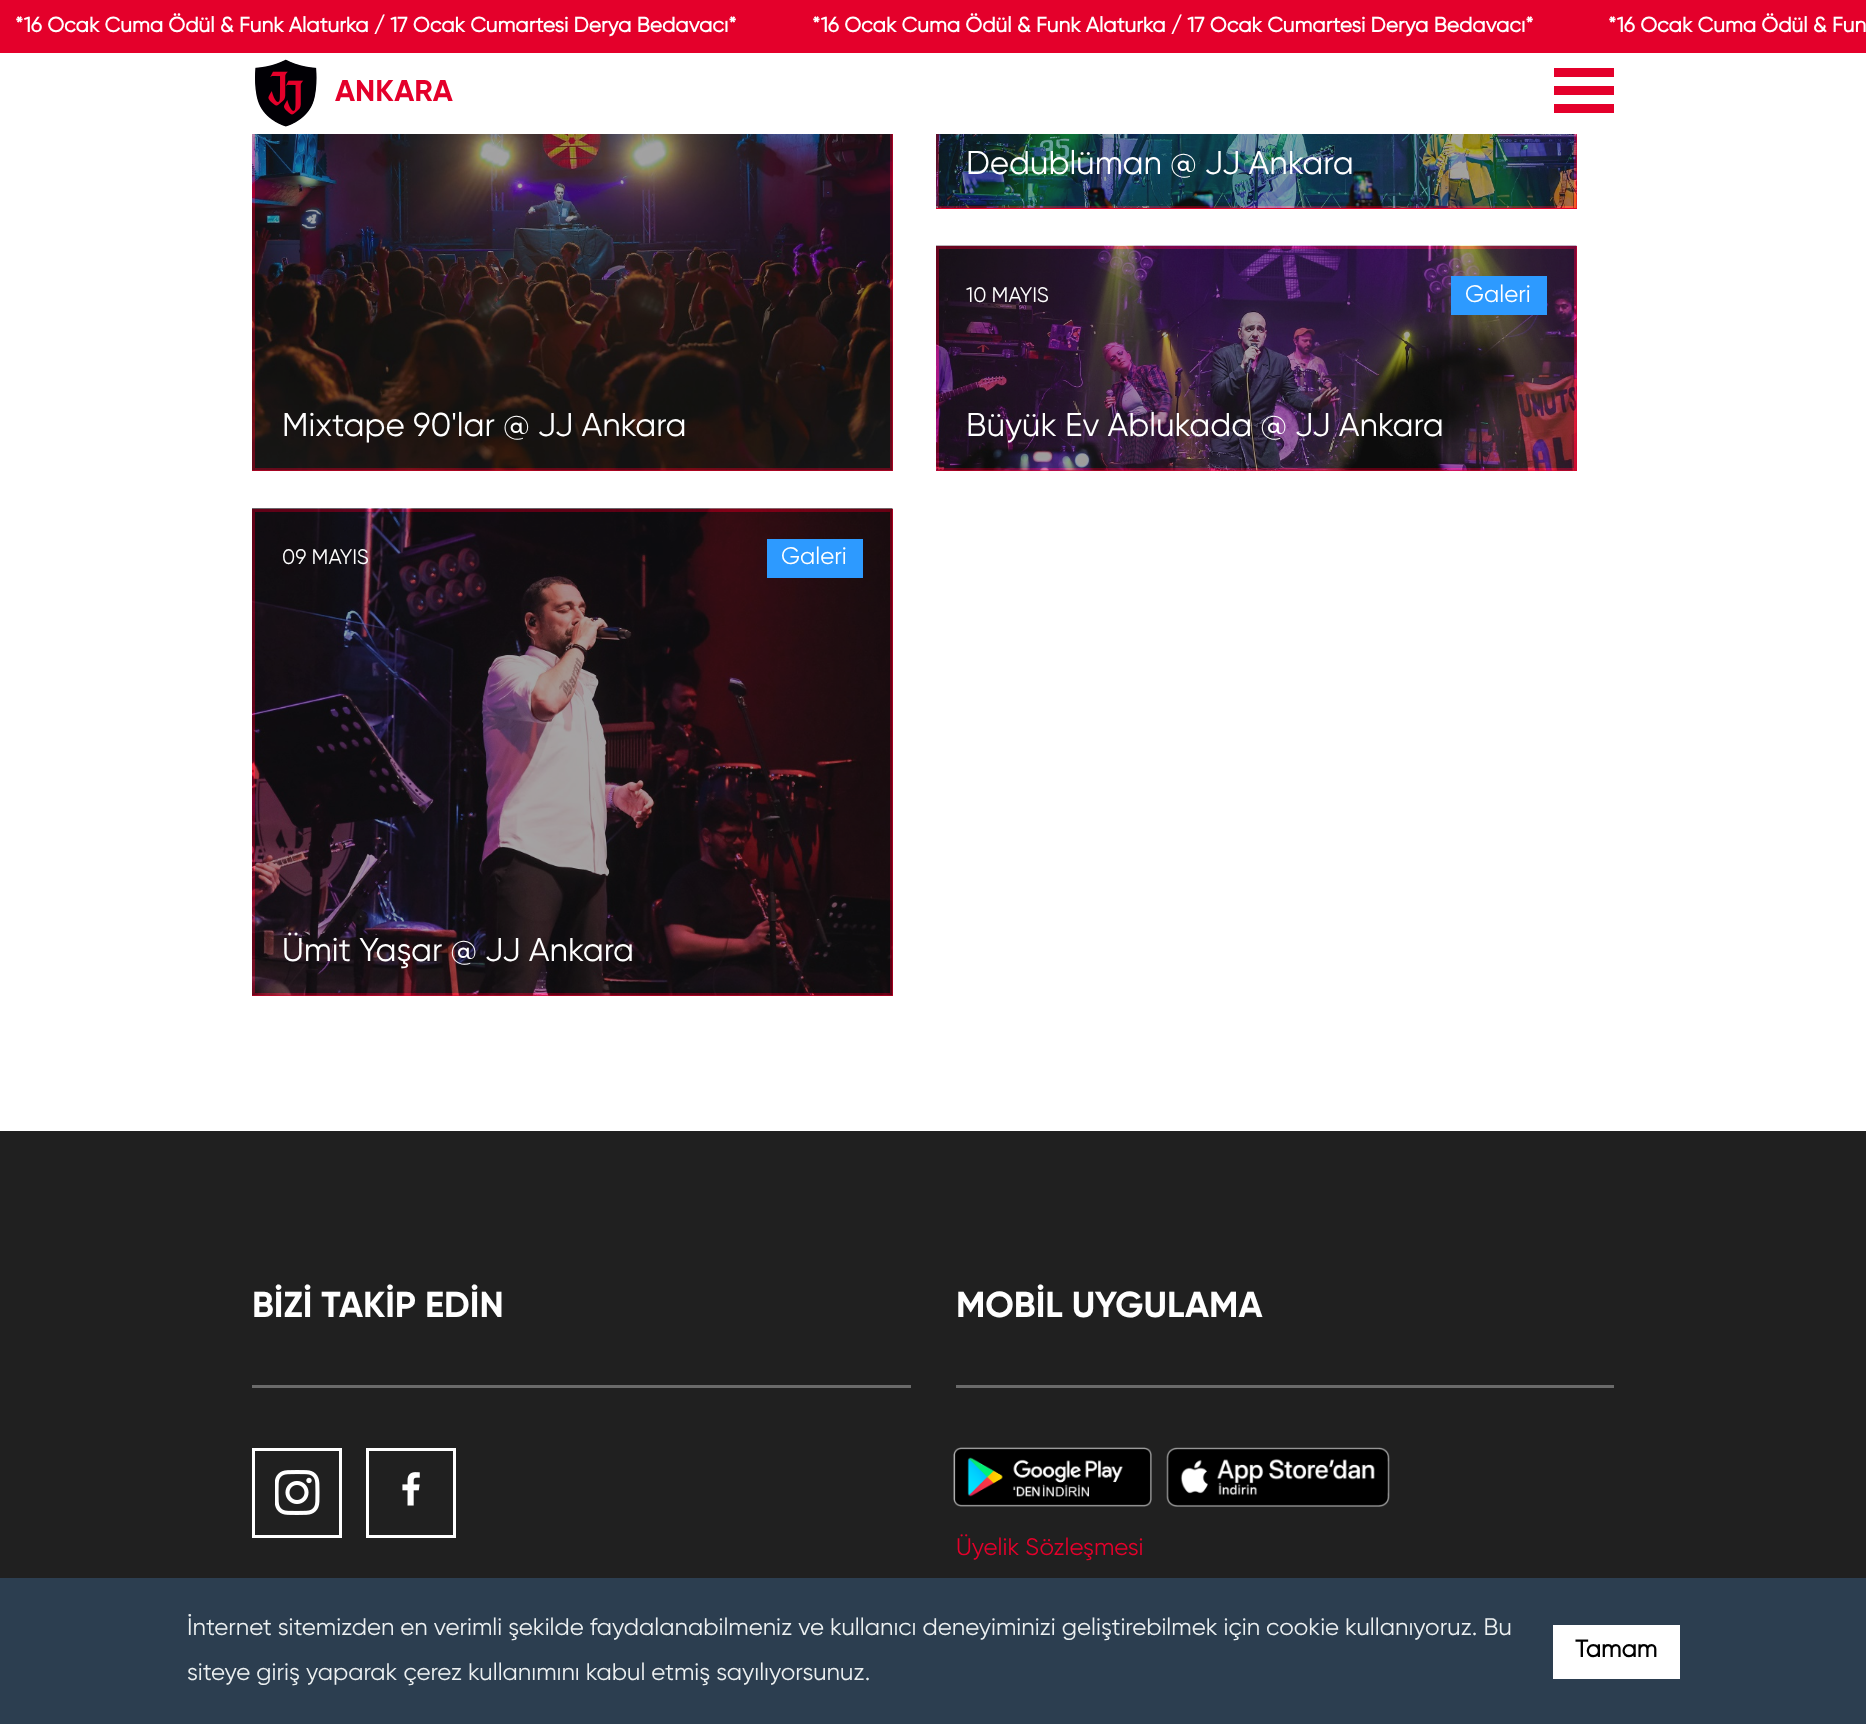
(async () => {
    const canvas = document.querySelector("canvas");
    canvas.width = 1866;
    canvas.height = 1724;
    const context = canvas.getContext("2d");
    context.miterLimit = 4;
    context.fontKerning = "normal";
    function write(s, x, y, font, color) {
        context.font = font;
        context.fillStyle = color;
        context.fillText(s, x, y);
    }
    function block(x, y, w, h, color) {
        context.fillStyle = color;
        context.fillRect(x, y, w, h);
    }
    async function photo(src, x, y, w, h) {
        const img = new Image();
        img.src = src;
        await img.decode();
        context.drawImage(img, x, y, w, h);
    }

    block(0, 0, 1866, 1724, "rgb(255, 255, 255)");
    block(939, 134, 635, 72, "rgb(32, 32, 32)");
    context.strokeStyle = "rgb(228, 0, 43)";
    context.lineWidth = 3;
    context.strokeRect(937.5, -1.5, 638, 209);
    block(255, 134, 635, 334, "rgb(32, 32, 32)");
    context.strokeRect(253.5, -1.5, 638, 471);
    block(252, 53, 1325, 81, "rgb(255, 255, 255)");
    block(0, 0, 1866, 53, "rgb(228, 0, 43)");
    write("*16 Ocak Cuma Ödül & Funk Alaturka / 17 Ocak Cumartesi Derya Bedavacı*", 15, 32, "bold 21px 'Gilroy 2'", "rgb(255, 255, 255)");
    write("*16 Ocak Cuma Ödül & Funk Alaturka / 17 Ocak Cumartesi Derya Bedavacı*", 812, 32, "bold 21px 'Gilroy 2'", "rgb(255, 255, 255)");
    write("*16 Ocak Cuma Ödül & Fun", 1608, 32, "bold 21px 'Gilroy 2'", "rgb(255, 255, 255)");
    await photo("media/1.png", 255, 59, 62, 68);
    write("ANKARA", 335, 101, "bold 30px Gilroy", "rgb(228, 0, 43)");
    block(1554, 68, 60, 9, "rgb(228, 0, 43)");
    block(1554, 86, 60, 9, "rgb(228, 0, 43)");
    block(1554, 104, 60, 9, "rgb(228, 0, 43)");
    await photo("media/2.png", 936, 134, 641, 74);
    write("Dedublüman @ JJ Ankara", 966, 174, "33px Gilroy", "rgb(255, 255, 255)");
    await photo("media/3.png", 252, 134, 641, 337);
    write("Mixtape 90'lar @ JJ Ankara", 282, 436, "33px Gilroy", "rgb(255, 255, 255)");
    context.fillStyle = "rgb(32, 32, 32)";
    context.beginPath();
    context.rect(937.5, 247.5, 638, 222);
    context.fill();
    context.stroke();
    await photo("media/4.png", 936, 245, 641, 226);
    write("10 MAYIS", 966, 302, "21px Gilroy", "rgb(255, 255, 255)");
    block(1451, 276, 96, 39, "rgb(45, 154, 255)");
    write("Galeri", 1465, 302, "24px Gilroy", "rgb(255, 255, 255)");
    write("Büyük Ev Ablukada @ JJ Ankara", 966, 436, "33px Gilroy", "rgb(255, 255, 255)");
    context.fillStyle = "rgb(32, 32, 32)";
    context.beginPath();
    context.rect(253.5, 510.5, 638, 484);
    context.fill();
    context.stroke();
    await photo("media/5.png", 252, 508, 641, 488);
    write("09 MAYIS", 282, 564, "21px Gilroy", "rgb(255, 255, 255)");
    block(767, 539, 96, 39, "rgb(45, 154, 255)");
    write("Galeri", 781, 564, "24px Gilroy", "rgb(255, 255, 255)");
    write("Ümit Yaşar @ JJ Ankara", 282, 961, "33px Gilroy", "rgb(255, 255, 255)");
    block(0, 1131, 1866, 447, "rgb(32, 32, 32)");
    write("BİZİ TAKİP EDİN", 252, 1317, "bold 36px Gilroy", "rgb(255, 255, 255)");
    block(252, 1385, 659, 3, "rgb(106, 106, 106)");
    context.strokeStyle = "rgb(255, 255, 255)";
    context.strokeRect(253.5, 1449.5, 87, 87);
    await photo("media/6.png", 275, 1470, 45, 45);
    context.strokeRect(367.5, 1449.5, 87, 87);
    await photo("media/7.png", 402, 1472, 18, 34);
    write("MOBİL UYGULAMA", 956, 1317, "bold 36px Gilroy", "rgb(255, 255, 255)");
    block(956, 1385, 658, 3, "rgb(106, 106, 106)");
    await photo("media/8.png", 953, 1447, 199, 60);
    await photo("media/9.png", 1166, 1447, 224, 60);
    write("Üyelik Sözleşmesi", 956, 1555, "24px Gilroy", "rgb(228, 0, 43)");
    block(0, 1578, 1866, 146, "rgb(44, 62, 80)");
    write("İnternet sitemizden en verimli şekilde faydalanabilmeniz ve kullanıcı deneyiminizi geliştirebilmek için cookie kullanıyoruz. Bu", 187, 1635, "24px Gilroy", "rgb(236, 240, 241)");
    write("siteye giriş yaparak çerez kullanımını kabul etmiş sayılıyorsunuz.", 187, 1680, "24px Gilroy", "rgb(236, 240, 241)");
    block(1553, 1625, 127, 54, "rgb(255, 255, 255)");
    write("Tamam", 1575, 1657, "bold 24px 'Gilroy 2'", "rgb(0, 0, 0)");
})();
